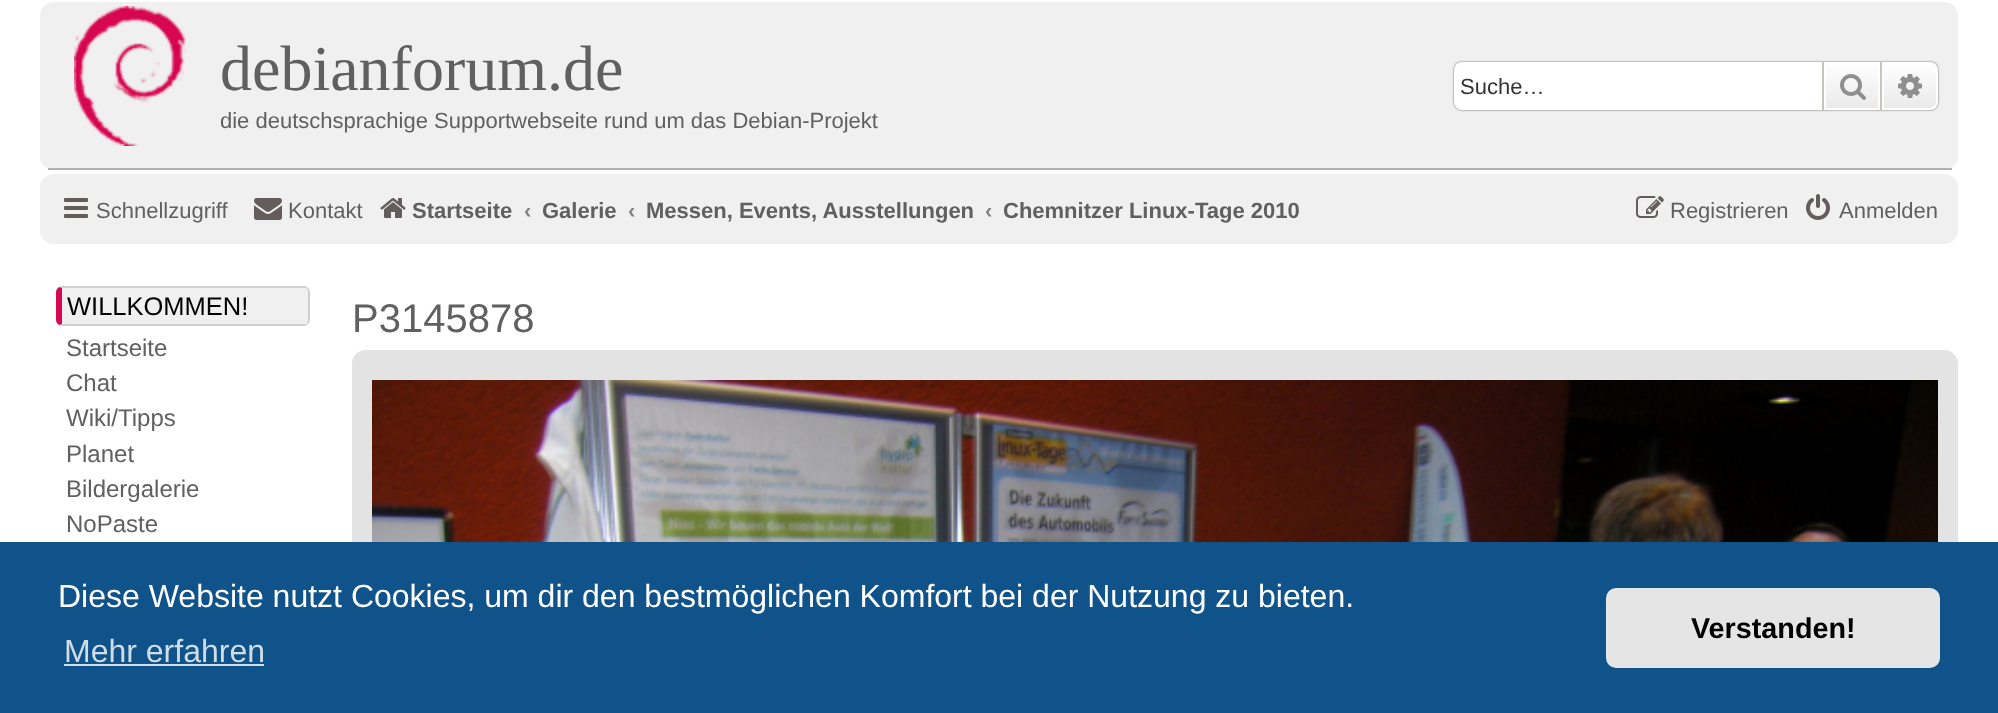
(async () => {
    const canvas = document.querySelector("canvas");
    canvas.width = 1998;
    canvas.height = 713;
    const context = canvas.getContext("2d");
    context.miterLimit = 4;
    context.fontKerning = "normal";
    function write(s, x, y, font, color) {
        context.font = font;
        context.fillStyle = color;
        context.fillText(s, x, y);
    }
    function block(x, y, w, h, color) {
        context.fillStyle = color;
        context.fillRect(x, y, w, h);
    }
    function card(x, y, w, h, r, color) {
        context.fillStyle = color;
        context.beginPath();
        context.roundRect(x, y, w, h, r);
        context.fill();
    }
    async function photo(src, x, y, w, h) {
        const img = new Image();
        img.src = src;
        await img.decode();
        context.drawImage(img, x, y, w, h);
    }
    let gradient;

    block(0, 0, 1998, 713, "rgb(255, 255, 255)");
    card(40, 2, 1918, 168, 14, "rgb(240, 240, 240)");
    block(48, 168, 1904, 2, "rgb(176, 176, 176)");
    await photo("media/1.png", 74, 6, 112, 140);
    write("debianforum.de", 220, 90, "64px Liberation Serif", "rgb(96, 96, 96)");
    write("die deutschsprachige Supportwebseite rund um das Debian-Projekt", 220, 128, "22px Liberation Sans", "rgb(96, 96, 96)");
    context.fillStyle = "rgb(116, 104, 103)";
    context.filter = "blur(1px)";
    context.beginPath();
    context.roundRect(1454, 62, 484, 48, 8);
    context.fill();
    context.filter = "none";
    context.fillStyle = "rgb(255, 255, 255)";
    context.beginPath();
    context.roundRect(1454, 62, 368, 48, [8, 0, 0, 8]);
    context.fill();
    write("Suche…", 1460, 94, "22px Liberation Sans", "rgb(51, 51, 51)");
    gradient = context.createLinearGradient(1852, 62, 1852, 110);
    gradient.addColorStop(0, "rgb(255, 255, 255)");
    gradient.addColorStop(1, "rgb(233, 233, 233)");
    context.fillStyle = gradient;
    context.fillRect(1826, 64, 52, 44);
    context.strokeStyle = "rgb(255, 255, 255)";
    context.lineWidth = 2;
    context.strokeRect(1825, 63, 54, 46);
    block(1880, 62, 2, 48, "rgb(199, 195, 191)");
    block(1822, 62, 2, 48, "rgb(199, 195, 191)");
    await photo("media/2.png", 1840, 74, 26, 26);
    gradient = context.createLinearGradient(1910, 62, 1910, 110);
    gradient.addColorStop(0, "rgb(255, 255, 255)");
    gradient.addColorStop(1, "rgb(233, 233, 233)");
    context.fillStyle = gradient;
    context.beginPath();
    context.roundRect(1883, 63, 54, 46, [0, 7, 7, 0]);
    context.fill();
    context.stroke();
    await photo("media/3.png", 1898, 74, 24, 24);
    card(40, 174, 1918, 70, 14, "rgb(240, 240, 240)");
    await photo("media/4.png", 64, 198, 24, 20);
    write("Schnellzugriff", 96, 218, "22px Liberation Sans", "rgb(96, 96, 96)");
    await photo("media/5.png", 254, 198, 28, 22);
    write("Kontakt", 288, 218, "22px Liberation Sans", "rgb(96, 96, 96)");
    await photo("media/6.png", 380, 198, 26, 20);
    write("Startseite", 412, 218, "bold 22px Liberation Sans", "rgb(96, 96, 96)");
    write("‹", 524, 218, "bold 22px Liberation Sans", "rgb(132, 130, 129)");
    write("Galerie", 542, 218, "bold 22px Liberation Sans", "rgb(96, 96, 96)");
    write("‹", 628, 218, "bold 22px Liberation Sans", "rgb(132, 130, 129)");
    write("Messen, Events, Ausstellungen", 646, 218, "bold 22px Liberation Sans", "rgb(96, 96, 96)");
    write("‹", 985, 218, "bold 22px Liberation Sans", "rgb(132, 130, 129)");
    write("Chemnitzer Linux-Tage 2010", 1003, 218, "bold 22px Liberation Sans", "rgb(96, 96, 96)");
    await photo("media/7.png", 1636, 196, 28, 22);
    write("Registrieren", 1670, 218, "22px Liberation Sans", "rgb(96, 96, 96)");
    await photo("media/8.png", 1806, 194, 24, 26);
    write("Anmelden", 1839, 218, "22px Liberation Sans", "rgb(96, 96, 96)");
    context.fillStyle = "rgb(240, 240, 240)";
    context.beginPath();
    context.moveTo(62, 288);
    context.lineTo(304, 288);
    context.bezierCurveTo(306, 288, 308, 290, 308, 292);
    context.lineTo(308, 320);
    context.bezierCurveTo(308, 322, 306, 324, 304, 324);
    context.lineTo(62, 324);
    context.closePath();
    context.fill();
    context.fillStyle = "rgb(208, 208, 208)";
    context.beginPath();
    context.moveTo(62, 286);
    context.lineTo(59, 287);
    context.lineTo(62, 288);
    context.lineTo(304, 288);
    context.bezierCurveTo(305, 288, 306, 288, 307, 289);
    context.lineTo(308, 288);
    context.bezierCurveTo(307, 287, 306, 286, 304, 286);
    context.closePath();
    context.fill();
    context.beginPath();
    context.moveTo(310, 320);
    context.lineTo(310, 292);
    context.bezierCurveTo(310, 290.5, 309, 289, 308, 288);
    context.lineTo(307, 289);
    context.bezierCurveTo(307.5, 290, 308, 291, 308, 292);
    context.lineTo(308, 320);
    context.bezierCurveTo(308, 321, 307.5, 322, 307, 323);
    context.lineTo(308, 324);
    context.bezierCurveTo(309, 323, 310, 321.5, 310, 320);
    context.closePath();
    context.fill();
    context.beginPath();
    context.moveTo(62, 326);
    context.lineTo(305, 326);
    context.lineTo(308, 324);
    context.lineTo(307, 323);
    context.bezierCurveTo(306, 324, 305, 324, 304, 324);
    context.lineTo(62, 324);
    context.lineTo(59, 325);
    context.closePath();
    context.fill();
    context.fillStyle = "rgb(215, 7, 81)";
    context.beginPath();
    context.moveTo(62, 288);
    context.lineTo(59, 287);
    context.bezierCurveTo(57.5, 288, 56, 290, 56, 292);
    context.lineTo(56, 320);
    context.bezierCurveTo(56, 322, 57.5, 324, 59, 325);
    context.lineTo(62, 324);
    context.closePath();
    context.fill();
    write("WILLKOMMEN!", 67, 315, "25.5px Liberation Sans", "rgb(0, 0, 0)");
    write("Startseite", 66, 356, "24px Liberation Sans", "rgb(96, 96, 96)");
    write("Chat", 66, 391, "24px Liberation Sans", "rgb(96, 96, 96)");
    write("Wiki/Tipps", 66, 426, "24px Liberation Sans", "rgb(96, 96, 96)");
    write("Planet", 66, 462, "24px Liberation Sans", "rgb(96, 96, 96)");
    write("Bildergalerie", 66, 497, "24px Liberation Sans", "rgb(96, 96, 96)");
    write("NoPaste", 66, 532, "24px Liberation Sans", "rgb(96, 96, 96)");
    write("P3145878", 352, 332, "40px Liberation Sans", "rgb(96, 96, 96)");
    card(352, 350, 1606, 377, 14, "rgb(227, 227, 227)");
    await photo("media/9.png", 372, 380, 1566, 162);
    block(0, 542, 1998, 171, "rgb(15, 83, 138)");
    write("Diese Website nutzt Cookies, um dir den bestmöglichen Komfort bei der Nutzung zu bieten.", 58, 607, "32px Liberation Sans", "rgb(255, 255, 255)");
    write("Mehr erfahren", 64, 662, "32px Liberation Sans", "rgb(207, 221, 232)");
    block(64, 664, 200, 2, "rgb(207, 221, 232)");
    card(1606, 588, 334, 80, 10, "rgb(229, 229, 229)");
    write("Verstanden!", 1691, 638, "bold 28.75px Liberation Sans", "rgb(0, 0, 0)");
})();
